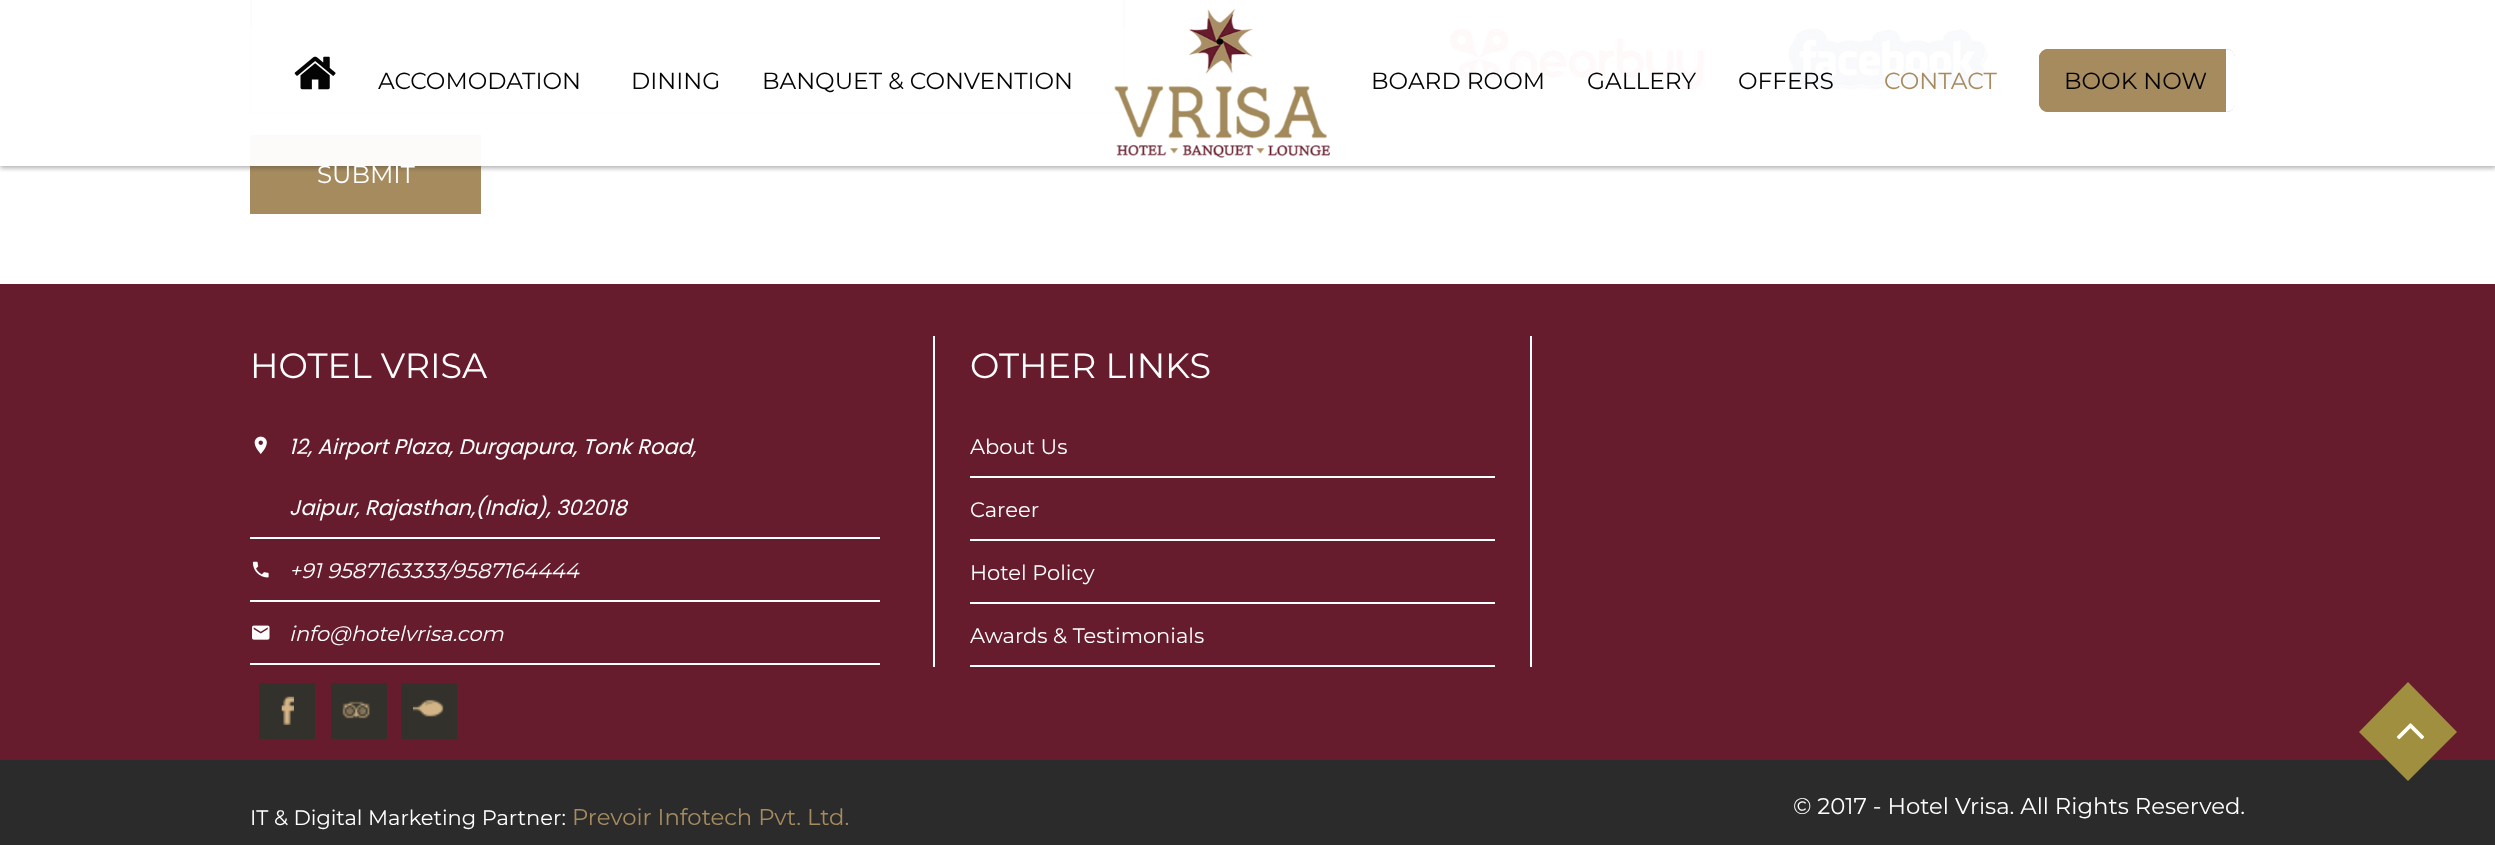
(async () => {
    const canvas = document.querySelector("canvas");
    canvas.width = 2495;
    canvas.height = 845;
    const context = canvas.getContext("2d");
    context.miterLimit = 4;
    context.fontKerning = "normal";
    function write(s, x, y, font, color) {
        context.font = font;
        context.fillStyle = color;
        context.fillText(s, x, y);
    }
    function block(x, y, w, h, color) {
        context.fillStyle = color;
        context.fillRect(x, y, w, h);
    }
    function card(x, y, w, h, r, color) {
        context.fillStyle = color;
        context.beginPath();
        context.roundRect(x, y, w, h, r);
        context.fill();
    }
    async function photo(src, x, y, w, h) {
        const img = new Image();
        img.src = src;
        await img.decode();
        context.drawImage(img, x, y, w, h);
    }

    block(0, 0, 2495, 845, "rgb(255, 255, 255)");
    await photo("media/3.png", 1449, 26, 258, 69);
    await photo("media/4.png", 1787, 26, 204, 65);
    context.strokeStyle = "rgb(221, 221, 221)";
    context.lineWidth = 2;
    context.strokeRect(251, -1, 873, 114);
    block(250, 135, 231, 79, "rgb(166, 139, 95)");
    context.save();
    context.beginPath();
    context.rect(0, 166, 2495, 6);
    context.clip();
    context.fillStyle = "rgba(50, 50, 50, 0.4)";
    context.filter = "blur(2.5px)";
    context.beginPath();
    context.rect(0, 2, 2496, 166);
    context.fill();
    context.filter = "none";
    context.restore();
    write("SUBMIT", 317, 183, "24.5px Montserrat", "rgb(255, 255, 255)");
    block(250, 0, 1741, 166, "rgba(255, 255, 255, 0.9)");
    block(250, 28, 1738, 138, "rgba(255, 255, 255, 0.66)");
    await photo("media/1.png", 294, 56, 42, 34);
    write("ACCOMODATION", 378, 89, "23.3px Montserrat", "rgb(4, 4, 4)");
    write("DINING", 631, 89, "23.3px Montserrat", "rgb(4, 4, 4)");
    write("BANQUET & CONVENTION", 762, 89, "23.3px Montserrat", "rgb(4, 4, 4)");
    await photo("media/2.png", 1114, 9, 216, 149);
    write("BOARD ROOM", 1371, 89, "23.3px Montserrat", "rgb(4, 4, 4)");
    write("GALLERY", 1587, 89, "23.3px Montserrat", "rgb(4, 4, 4)");
    write("OFFERS", 1738, 89, "23.3px Montserrat", "rgb(4, 4, 4)");
    write("CONTACT", 1884, 89, "23.3px Montserrat", "rgb(166, 139, 95)");
    card(2039, 49, 196, 63, 9, "rgb(166, 139, 95)");
    write("BOOK NOW", 2064, 89, "23.3px Montserrat", "rgb(4, 4, 4)");
    context.fillStyle = "rgb(255, 255, 255)";
    context.beginPath();
    context.moveTo(2235, 56);
    context.bezierCurveTo(2234, 52, 2230, 49, 2226, 49);
    context.lineTo(2226, 112);
    context.bezierCurveTo(2230, 112, 2234, 109, 2235, 105);
    context.closePath();
    context.fill();
    context.fillStyle = "rgb(166, 139, 95)";
    context.beginPath();
    context.moveTo(2048, 49);
    context.bezierCurveTo(2043, 49, 2039, 53, 2039, 58);
    context.lineTo(2039, 103);
    context.bezierCurveTo(2039, 108, 2043, 112, 2048, 112);
    context.closePath();
    context.fill();
    block(0, 284, 2495, 476, "rgb(102, 28, 45)");
    write("HOTEL VRISA", 250, 378, "35px Montserrat", "rgb(255, 255, 255)");
    block(250, 537, 630, 2, "rgb(255, 255, 255)");
    await photo("media/5.png", 254, 436, 13, 18);
    write("12, Airport Plaza, Durgapura, Tonk Road,", 289, 454, "italic 21px Poppins", "rgb(255, 255, 255)");
    write("Jaipur, Rajasthan,(India), 302018", 289, 515, "italic 21px Poppins", "rgb(255, 255, 255)");
    block(250, 600, 630, 2, "rgb(255, 255, 255)");
    await photo("media/6.png", 252, 561, 17, 17);
    write("+91 9587163333/9587164444", 289, 578, "italic 21px Montserrat", "rgb(255, 255, 255)");
    block(250, 663, 630, 2, "rgb(255, 255, 255)");
    await photo("media/7.png", 252, 625, 18, 15);
    write("info@hotelvrisa.com", 289, 641, "italic 21px Montserrat", "rgb(255, 255, 255)");
    block(259, 683, 56, 56, "rgb(50, 49, 43)");
    await photo("media/8.png", 281, 696, 13, 29);
    block(331, 683, 56, 56, "rgb(50, 49, 43)");
    await photo("media/9.png", 342, 701, 28, 18);
    block(401, 683, 56, 56, "rgb(50, 49, 43)");
    await photo("media/10.png", 413, 699, 31, 18);
    block(1530, 336, 2, 331, "rgb(255, 255, 255)");
    block(933, 336, 2, 331, "rgb(255, 255, 255)");
    write("OTHER LINKS", 970, 378, "35px Montserrat", "rgb(255, 255, 255)");
    block(970, 476, 525, 2, "rgb(255, 255, 255)");
    write("About Us", 970, 454, "21px Montserrat", "rgb(255, 255, 255)");
    block(970, 539, 525, 2, "rgb(255, 255, 255)");
    write("Career", 970, 517, "21px Montserrat", "rgb(255, 255, 255)");
    block(970, 602, 525, 2, "rgb(255, 255, 255)");
    write("Hotel Policy", 970, 580, "21px Montserrat", "rgb(255, 255, 255)");
    block(970, 665, 525, 2, "rgb(255, 255, 255)");
    write("Awards & Testimonials", 970, 643, "21px Montserrat", "rgb(255, 255, 255)");
    block(0, 760, 2495, 85, "rgb(43, 43, 43)");
    write("IT & Digital Marketing Partner:", 250, 825, "21px Montserrat", "rgb(255, 255, 255)");
    write("Prevoir Infotech Pvt. Ltd.", 572, 825, "22.75px Montserrat", "rgb(166, 139, 95)");
    write("© 2017 - Hotel Vrisa. All Rights Reserved.", 1793, 814, "22.75px Montserrat", "rgb(255, 255, 255)");
    context.fillStyle = "rgb(160, 143, 63)";
    context.beginPath();
    context.moveTo(2408, 682);
    context.lineTo(2457, 732);
    context.lineTo(2408, 781);
    context.lineTo(2359, 732);
    context.closePath();
    context.fill();
    await photo("media/11.png", 2396, 723, 29, 17);
})();
